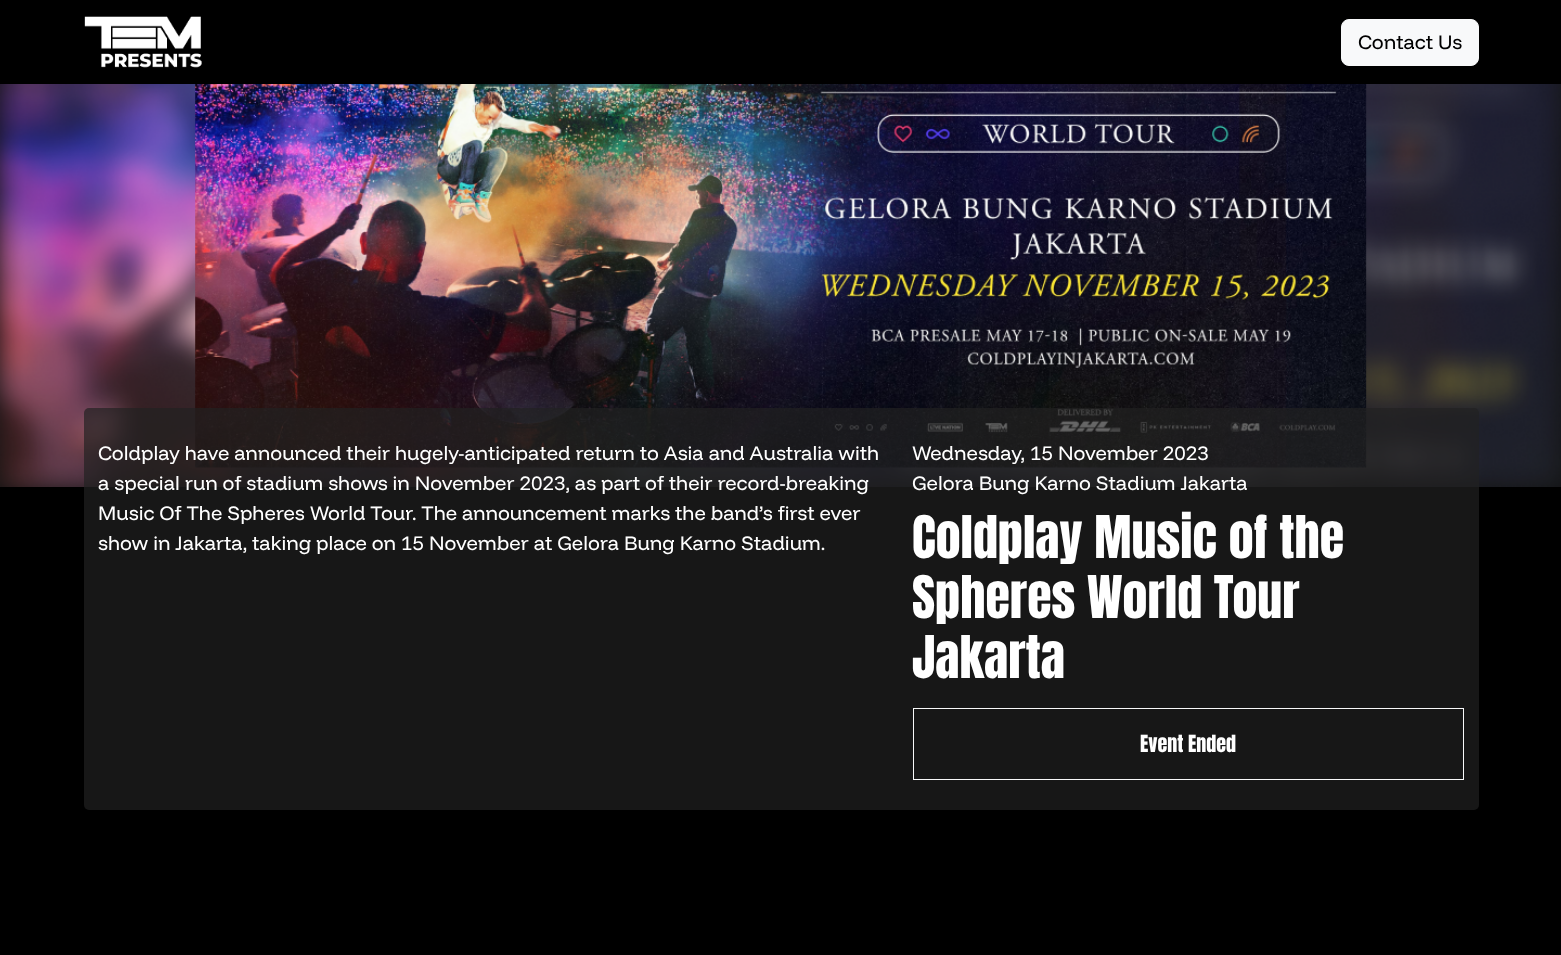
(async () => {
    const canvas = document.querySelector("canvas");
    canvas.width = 1561;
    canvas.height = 955;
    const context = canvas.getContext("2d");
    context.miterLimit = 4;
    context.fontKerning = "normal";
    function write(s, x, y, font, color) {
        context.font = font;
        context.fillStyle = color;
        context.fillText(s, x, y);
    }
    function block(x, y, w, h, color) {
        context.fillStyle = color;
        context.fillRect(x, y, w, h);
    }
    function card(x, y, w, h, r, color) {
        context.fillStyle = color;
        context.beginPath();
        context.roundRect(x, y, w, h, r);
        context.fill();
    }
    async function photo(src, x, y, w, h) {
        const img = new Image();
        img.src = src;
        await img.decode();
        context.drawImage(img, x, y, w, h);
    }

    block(0, 0, 1561, 955, "rgb(0, 0, 0)");
    await photo("media/1.png", 84, 16, 118, 52);
    context.fillStyle = "rgb(248, 249, 250)";
    context.beginPath();
    context.roundRect(1341.5, 19.5, 137, 46, 7.5);
    context.fill();
    context.strokeStyle = "rgb(248, 249, 250)";
    context.stroke();
    write("Contact Us", 1358, 49, "20px Funnel Display", "rgb(0, 0, 0)");
    await photo("media/2.png", 0, 84, 1561, 403);
    card(84, 408, 1395, 402, 5, "rgba(34, 34, 34, 0.69)");
    write("Coldplay have announced their hugely-anticipated return to Asia and Australia with", 98, 460, "20px Funnel Display", "rgb(255, 255, 255)");
    write("a special run of stadium shows in November 2023, as part of their record-breaking", 98, 490, "20px Funnel Display", "rgb(255, 255, 255)");
    write("Music Of The Spheres World Tour. The announcement marks the band’s first ever", 98, 520, "20px Funnel Display", "rgb(255, 255, 255)");
    write("show in Jakarta, taking place on 15 November at Gelora Bung Karno Stadium.", 98, 550, "20px Funnel Display", "rgb(255, 255, 255)");
    write("Wednesday, 15 November 2023", 912, 460, "20px Funnel Display", "rgb(255, 255, 255)");
    write("Gelora Bung Karno Stadium Jakarta", 912, 490, "20px Funnel Display", "rgb(255, 255, 255)");
    write("Coldplay Music of the", 912, 558, "50px Anton", "rgb(255, 255, 255)");
    write("Spheres World Tour", 912, 618, "50px Anton", "rgb(255, 255, 255)");
    write("Jakarta", 912, 678, "50px Anton", "rgb(255, 255, 255)");
    context.strokeRect(913.5, 708.5, 550, 71);
    write("Event Ended", 1140, 752, "20px Anton", "rgb(255, 255, 255)");
})();
